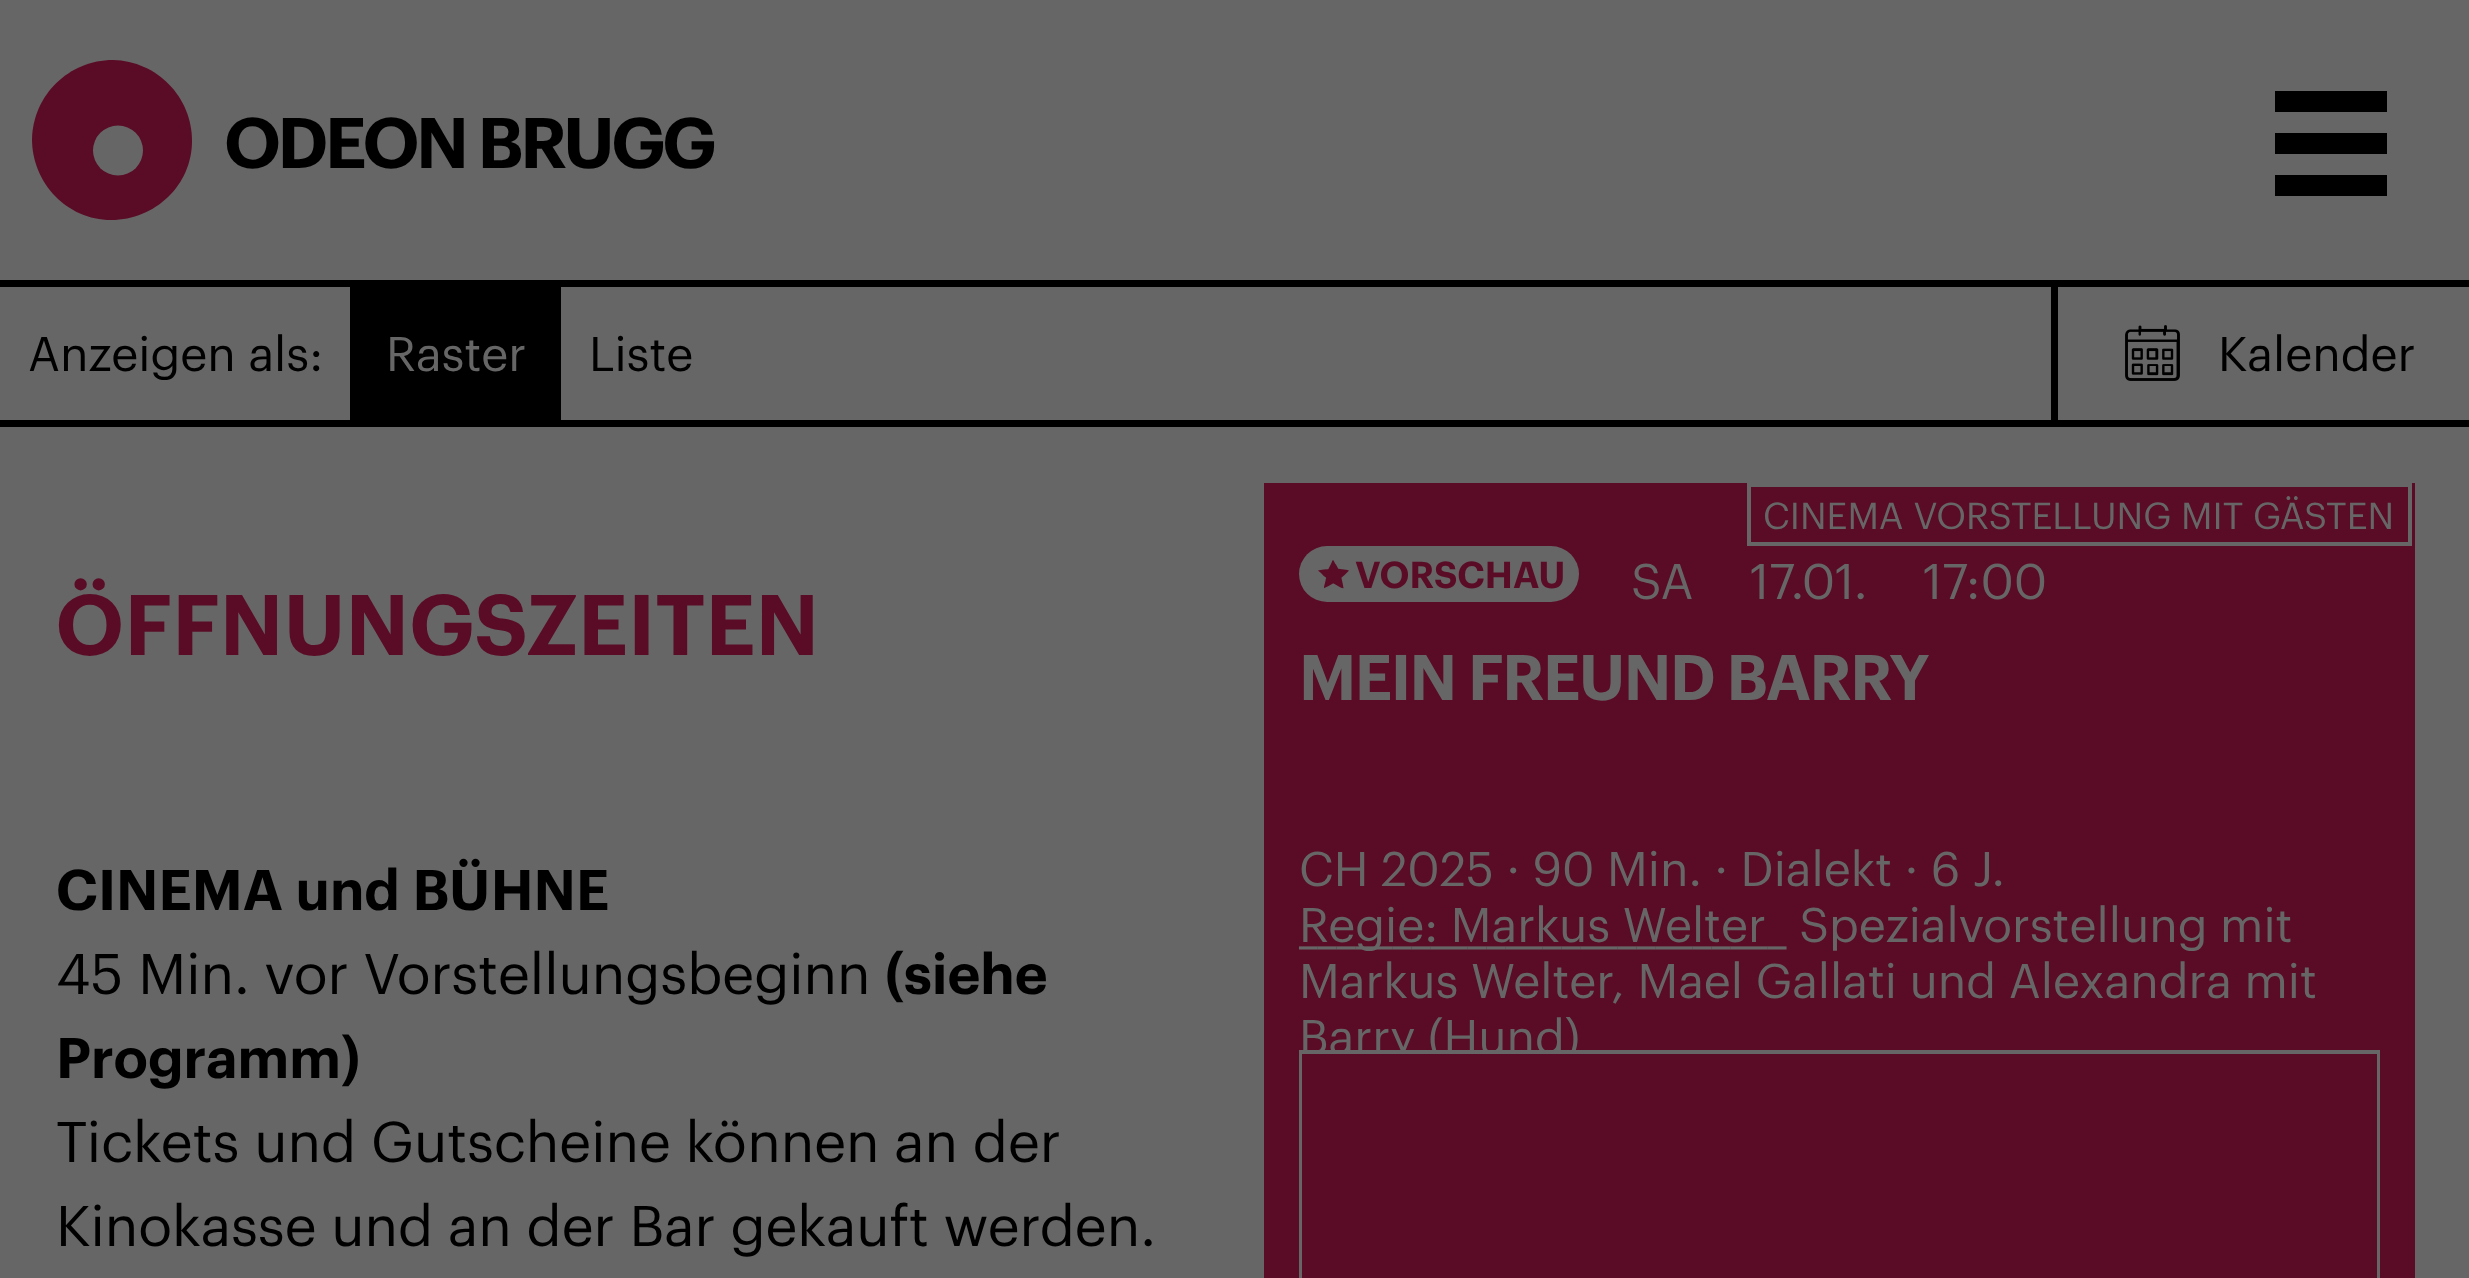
(async () => {
    const canvas = document.querySelector("canvas");
    canvas.width = 2469;
    canvas.height = 1278;
    const context = canvas.getContext("2d");
    context.miterLimit = 4;
    context.fontKerning = "normal";
    function write(s, x, y, font, color) {
        context.font = font;
        context.fillStyle = color;
        context.fillText(s, x, y);
    }
    function block(x, y, w, h, color) {
        context.fillStyle = color;
        context.fillRect(x, y, w, h);
    }
    function card(x, y, w, h, r, color) {
        context.fillStyle = color;
        context.beginPath();
        context.roundRect(x, y, w, h, r);
        context.fill();
    }
    async function photo(src, x, y, w, h) {
        const img = new Image();
        img.src = src;
        await img.decode();
        context.drawImage(img, x, y, w, h);
    }

    block(0, 0, 2469, 1278, "rgb(102, 102, 102)");
    block(0, 280, 2469, 7, "rgb(0, 0, 0)");
    context.fillStyle = "rgb(90, 11, 37)";
    context.beginPath();
    context.moveTo(32, 139);
    context.bezierCurveTo(32, 183, 67, 220, 111, 220);
    context.bezierCurveTo(155, 220, 192, 185, 192, 141);
    context.bezierCurveTo(192, 97, 157, 61, 113, 60);
    context.bezierCurveTo(69, 60, 33, 95, 32, 139);
    context.fill();
    context.fillStyle = "rgb(102, 102, 102)";
    context.beginPath();
    context.arc(118, 150.5, 25, 0, Math.PI * 2);
    context.fill();
    context.letterSpacing = "-3.5px";
    write("ODEON BRUGG", 224, 168, "600 70px Graphik", "rgb(0, 0, 0)");
    block(2275, 91, 112, 21, "rgb(0, 0, 0)");
    block(2275, 133, 112, 21, "rgb(0, 0, 0)");
    block(2275, 175, 112, 21, "rgb(0, 0, 0)");
    block(0, 420, 2469, 7, "rgb(0, 0, 0)");
    block(350, 287, 4, 133, "rgb(0, 0, 0)");
    context.letterSpacing = "0px";
    write("Anzeigen als:", 28, 371, "47.6px Graphik", "rgb(0, 0, 0)");
    block(354, 287, 207, 133, "rgb(0, 0, 0)");
    write("Raster", 386, 371, "47.6px Graphik", "rgb(102, 102, 102)");
    write("Liste", 589, 371, "47.6px Graphik", "rgb(0, 0, 0)");
    block(2051, 287, 7, 133, "rgb(0, 0, 0)");
    await photo("media/1.png", 2125, 325, 55, 56);
    write("Kalender", 2218, 371, "47.6px Graphik", "rgb(0, 0, 0)");
    write("ÖFFNUNGSZEITEN", 56, 655, "600 84px Graphik", "rgb(90, 11, 37)");
    write("CINEMA und BÜHNE", 56, 910, "600 56px Graphik", "rgb(0, 0, 0)");
    write("45 Min. vor Vorstellungsbeginn", 56, 994, "56px Graphik", "rgb(0, 0, 0)");
    write("(siehe", 885, 994, "600 56px Graphik", "rgb(0, 0, 0)");
    write("Programm)", 56, 1078, "600 56px Graphik", "rgb(0, 0, 0)");
    write("Tickets und Gutscheine können an der", 56, 1162, "56px Graphik", "rgb(0, 0, 0)");
    write("Kinokasse und an der Bar gekauft werden.", 56, 1246, "56px Graphik", "rgb(0, 0, 0)");
    block(1264, 483, 1151, 795, "rgb(90, 11, 37)");
    context.strokeStyle = "rgb(102, 102, 102)";
    context.lineWidth = 4;
    context.strokeRect(1749, 485, 661, 59);
    write("CINEMA VORSTELLUNG MIT GÄSTEN", 1763, 529, "36.75px Graphik", "rgb(102, 102, 102)");
    card(1299, 546, 280, 56, 28, "rgb(102, 102, 102)");
    await photo("media/2.png", 1318, 560, 31, 29);
    write("VORSCHAU", 1355, 588, "600 36.75px Graphik", "rgb(90, 11, 37)");
    write("SA", 1631, 599, "49px Graphik", "rgb(102, 102, 102)");
    write("17.01.", 1750, 599, "49px Graphik", "rgb(102, 102, 102)");
    write("17:00", 1923, 599, "49px Graphik", "rgb(102, 102, 102)");
    context.letterSpacing = "-1.6px";
    write("MEIN FREUND BARRY", 1299, 700, "600 63px Graphik", "rgb(102, 102, 102)");
    context.letterSpacing = "0px";
    write("CH 2025 · 90 Min. · Dialekt · 6 J.", 1299, 886, "47.6px Graphik", "rgb(102, 102, 102)");
    write("Regie: Markus Welter", 1299, 942, "47.6px Graphik", "rgb(102, 102, 102)");
    write("__________________________ Spezialvorstellung mit", 1299, 942, "47.6px Graphik", "rgb(102, 102, 102)");
    write("Markus Welter, Mael Gallati und Alexandra mit", 1299, 998, "47.6px Graphik", "rgb(102, 102, 102)");
    write("Barry (Hund)", 1299, 1054, "47.6px Graphik", "rgb(102, 102, 102)");
    context.strokeRect(1301, 1052, 1077, 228);
    block(1302, 1054, 1075, 224, "rgb(90, 11, 37)");
})();
